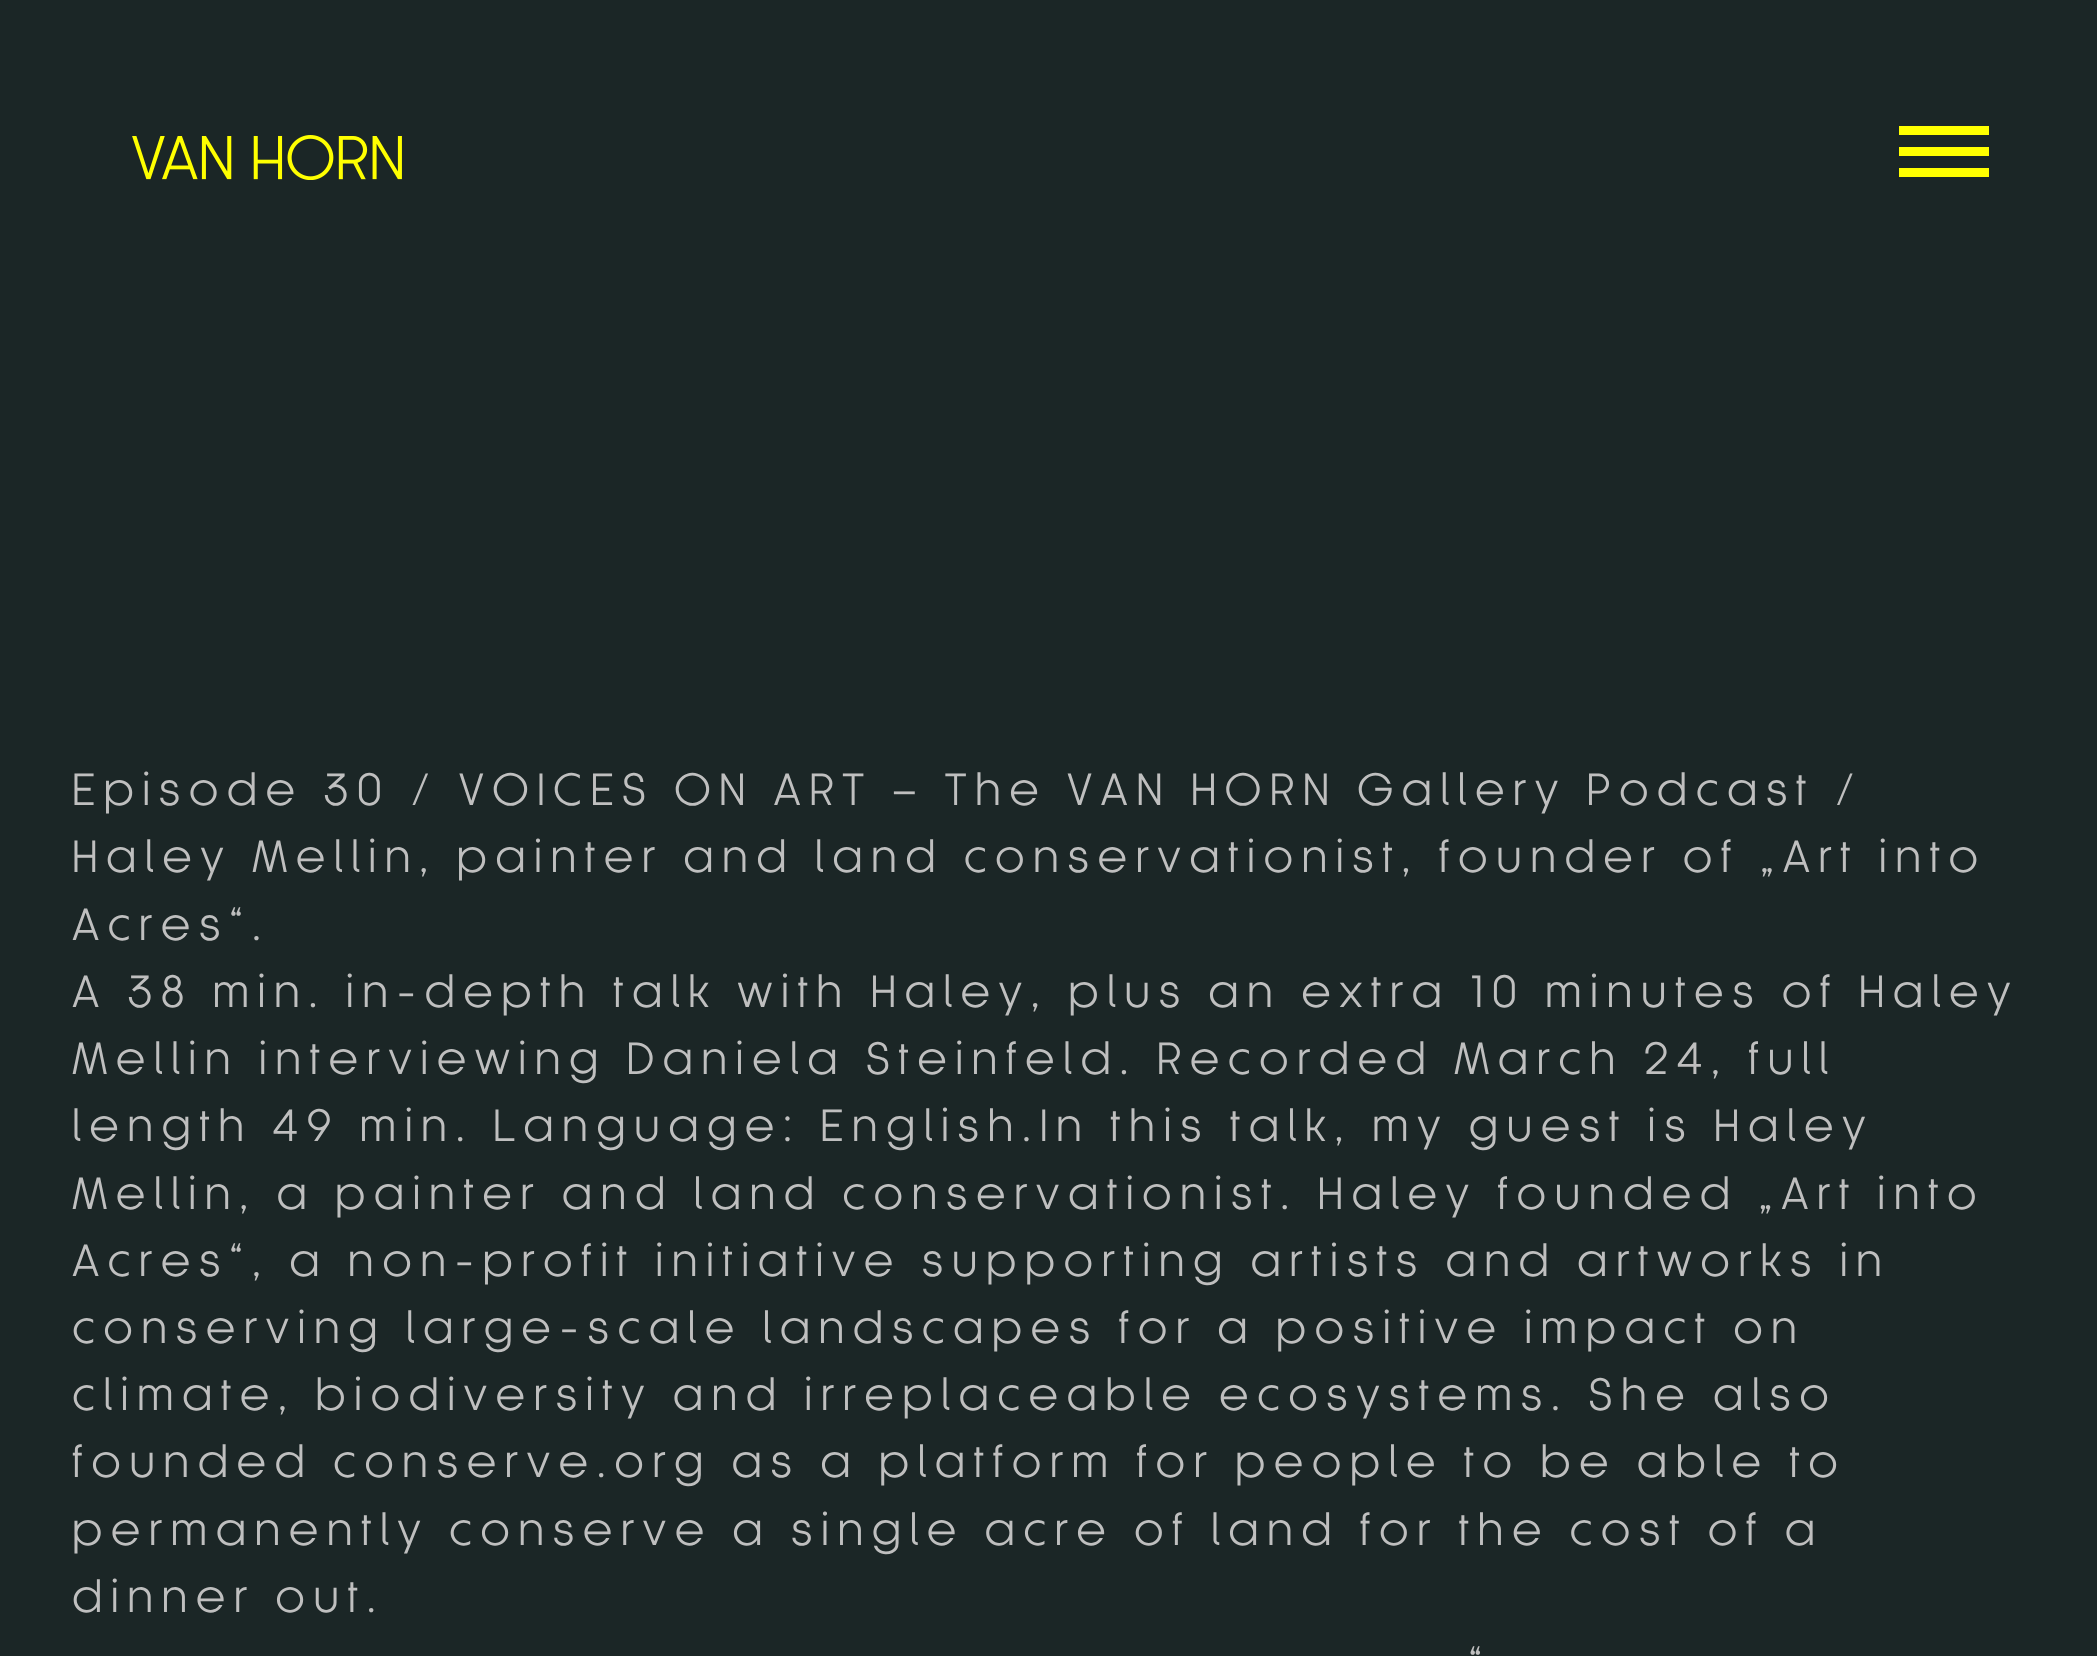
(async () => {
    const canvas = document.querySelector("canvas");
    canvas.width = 2097;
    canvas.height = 1656;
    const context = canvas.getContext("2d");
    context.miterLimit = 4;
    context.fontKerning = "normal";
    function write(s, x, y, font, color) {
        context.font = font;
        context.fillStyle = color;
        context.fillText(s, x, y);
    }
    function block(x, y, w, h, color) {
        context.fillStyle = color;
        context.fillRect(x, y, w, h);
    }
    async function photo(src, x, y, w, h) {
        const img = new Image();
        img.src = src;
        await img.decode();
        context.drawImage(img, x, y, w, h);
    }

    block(0, 0, 2097, 1656, "rgb(27, 38, 38)");
    await photo("media/1.png", 132, 135, 270, 45);
    block(1899, 126, 90, 9, "rgb(255, 255, 0)");
    block(1899, 147, 90, 9, "rgb(255, 255, 0)");
    block(1899, 168, 90, 9, "rgb(255, 255, 0)");
    context.letterSpacing = "8.4px";
    write("Episode 30 / VOICES ON ART – The VAN HORN Gallery Podcast /", 72, 805, "42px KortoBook", "rgb(191, 191, 191)");
    write("Haley Mellin, painter and land conservationist, founder of „Art into", 72, 872, "42px KortoBook", "rgb(191, 191, 191)");
    write("Acres“.", 72, 940, "42px KortoBook", "rgb(191, 191, 191)");
    write("A 38 min. in-depth talk with Haley, plus an extra 10 minutes of Haley", 72, 1007, "42px KortoBook", "rgb(191, 191, 191)");
    write("Mellin interviewing Daniela Steinfeld. Recorded March 24, full", 72, 1074, "42px KortoBook", "rgb(191, 191, 191)");
    write("length 49 min. Language: English.In this talk, my guest is Haley", 72, 1141, "42px KortoBook", "rgb(191, 191, 191)");
    write("Mellin, a painter and land conservationist. Haley founded „Art into", 72, 1209, "42px KortoBook", "rgb(191, 191, 191)");
    write("Acres“, a non-profit initiative supporting artists and artworks in", 72, 1276, "42px KortoBook", "rgb(191, 191, 191)");
    write("conserving large-scale landscapes for a positive impact on", 72, 1343, "42px KortoBook", "rgb(191, 191, 191)");
    write("climate, biodiversity and irreplaceable ecosystems. She also", 72, 1410, "42px KortoBook", "rgb(191, 191, 191)");
    write("founded conserve.org as a platform for people to be able to", 72, 1477, "42px KortoBook", "rgb(191, 191, 191)");
    write("permanently conserve a single acre of land for the cost of a", 72, 1545, "42px KortoBook", "rgb(191, 191, 191)");
    write("dinner out.", 72, 1612, "42px KortoBook", "rgb(191, 191, 191)");
    write("“", 1468, 1679, "42px KortoBook", "rgb(191, 191, 191)");
})();
